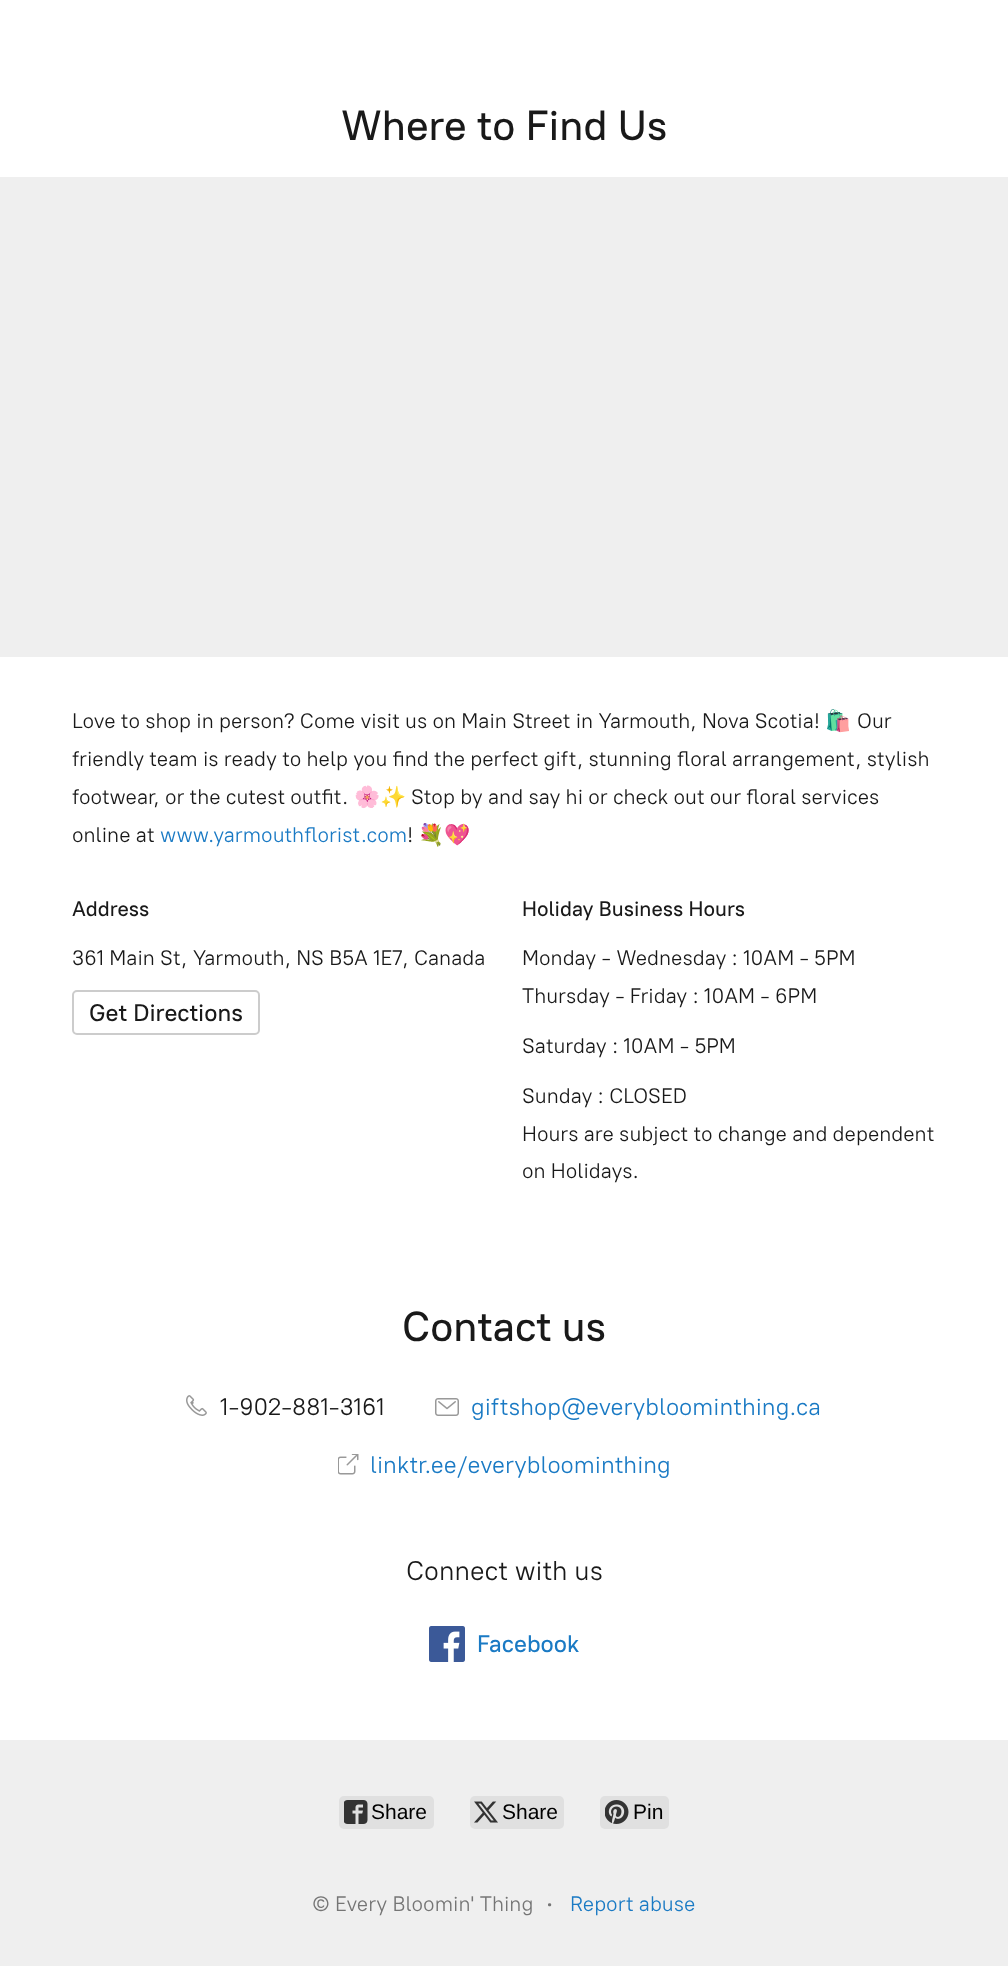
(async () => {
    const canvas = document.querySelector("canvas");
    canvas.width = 1008;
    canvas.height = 1966;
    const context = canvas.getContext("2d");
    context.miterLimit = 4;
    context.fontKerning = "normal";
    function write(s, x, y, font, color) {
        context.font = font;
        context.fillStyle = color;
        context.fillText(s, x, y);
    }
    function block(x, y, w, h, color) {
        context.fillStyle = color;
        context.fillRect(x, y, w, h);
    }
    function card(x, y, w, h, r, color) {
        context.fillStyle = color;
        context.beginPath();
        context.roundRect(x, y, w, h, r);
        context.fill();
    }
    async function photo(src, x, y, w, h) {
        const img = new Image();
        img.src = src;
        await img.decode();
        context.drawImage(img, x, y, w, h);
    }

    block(0, 0, 1008, 1966, "rgb(255, 255, 255)");
    write("Where to Find Us", 341, 140, "500 42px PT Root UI", "rgb(25, 25, 25)");
    block(0, 177, 1008, 480, "rgb(239, 239, 239)");
    write("Love to shop in person? Come visit us on Main Street in Yarmouth, Nova Scotia!", 72, 728, "21px PT Root UI", "rgb(25, 25, 25)");
    write("🛍️", 825, 728, "21px Noto Color Emoji", "rgb(25, 25, 25)");
    write("Our", 857, 728, "21px PT Root UI", "rgb(25, 25, 25)");
    write("friendly team is ready to help you find the perfect gift, stunning floral arrangement, stylish", 72, 766, "21px PT Root UI", "rgb(25, 25, 25)");
    write("footwear, or the cutest outfit.", 72, 804, "21px PT Root UI", "rgb(25, 25, 25)");
    write("🌸✨", 354, 804, "21px Noto Color Emoji", "rgb(25, 25, 25)");
    write("Stop by and say hi or check out our floral services", 411, 804, "21px PT Root UI", "rgb(25, 25, 25)");
    write("online at", 72, 842, "21px PT Root UI", "rgb(25, 25, 25)");
    write("www.yarmouthflorist.com", 160, 842, "21px PT Root UI", "rgb(26, 122, 196)");
    write("!", 407, 842, "21px PT Root UI", "rgb(25, 25, 25)");
    write("💐💖", 418, 842, "21px Noto Color Emoji", "rgb(25, 25, 25)");
    write("Address", 72, 916, "500 21px PT Root UI", "rgb(25, 25, 25)");
    write("361 Main St, Yarmouth, NS B5A 1E7, Canada", 72, 965, "21px PT Root UI", "rgb(25, 25, 25)");
    context.beginPath();
    context.roundRect(73, 991, 186, 43, 4);
    context.strokeStyle = "rgb(204, 204, 204)";
    context.lineWidth = 2;
    context.stroke();
    write("Get Directions", 89, 1021, "500 24px PT Root UI", "rgb(25, 25, 25)");
    write("Holiday Business Hours", 522, 916, "500 21px PT Root UI", "rgb(25, 25, 25)");
    write("Monday - Wednesday : 10AM - 5PM", 522, 965, "21px PT Root UI", "rgb(25, 25, 25)");
    write("Thursday - Friday : 10AM - 6PM", 522, 1003, "21px PT Root UI", "rgb(25, 25, 25)");
    write("Saturday : 10AM - 5PM", 522, 1053, "21px PT Root UI", "rgb(25, 25, 25)");
    write("Sunday : CLOSED", 522, 1103, "21px PT Root UI", "rgb(25, 25, 25)");
    write("Hours are subject to change and dependent", 522, 1141, "21px PT Root UI", "rgb(25, 25, 25)");
    write("on Holidays.", 522, 1178, "21px PT Root UI", "rgb(25, 25, 25)");
    write("Contact us", 402, 1341, "500 42px PT Root UI", "rgb(25, 25, 25)");
    await photo("media/1.png", 186, 1395, 21, 21);
    write("1-902-881-3161", 220, 1415, "24px PT Root UI", "rgb(25, 25, 25)");
    await photo("media/2.png", 435, 1398, 24, 18);
    write("giftshop@everybloominthing.ca", 471, 1415, "24px PT Root UI", "rgb(26, 122, 196)");
    await photo("media/3.png", 338, 1454, 21, 21);
    write("linktr.ee/everybloominthing", 370, 1473, "24px PT Root UI", "rgb(26, 122, 196)");
    write("Connect with us", 406, 1580, "27px PT Root UI", "rgb(25, 25, 25)");
    await photo("media/4.png", 429, 1626, 36, 36);
    write("Facebook", 477, 1652, "500 24px PT Root UI", "rgb(26, 122, 196)");
    block(0, 1740, 1008, 226, "rgb(239, 239, 239)");
    card(339, 1796, 95, 33, 5, "rgb(224, 224, 224)");
    await photo("media/5.png", 344, 1800, 24, 24);
    write("Share", 371, 1819, "21px Liberation Sans", "rgb(0, 0, 0)");
    card(470, 1796, 94, 33, 5, "rgb(224, 224, 224)");
    await photo("media/6.png", 474, 1801, 24, 22);
    write("Share", 502, 1819, "21px Liberation Sans", "rgb(0, 0, 0)");
    card(600, 1796, 69, 33, 5, "rgb(224, 224, 224)");
    await photo("media/7.png", 605, 1800, 24, 24);
    write("Pin", 633, 1819, "21px Liberation Sans", "rgb(0, 0, 0)");
    write("© Every Bloomin' Thing", 312, 1911, "21px PT Root UI", "rgb(117, 117, 117)");
    write("·", 546, 1911, "500 24px PT Root UI", "rgb(117, 117, 117)");
    write("Report abuse", 570, 1911, "21px PT Root UI", "rgb(26, 122, 196)");
})();
